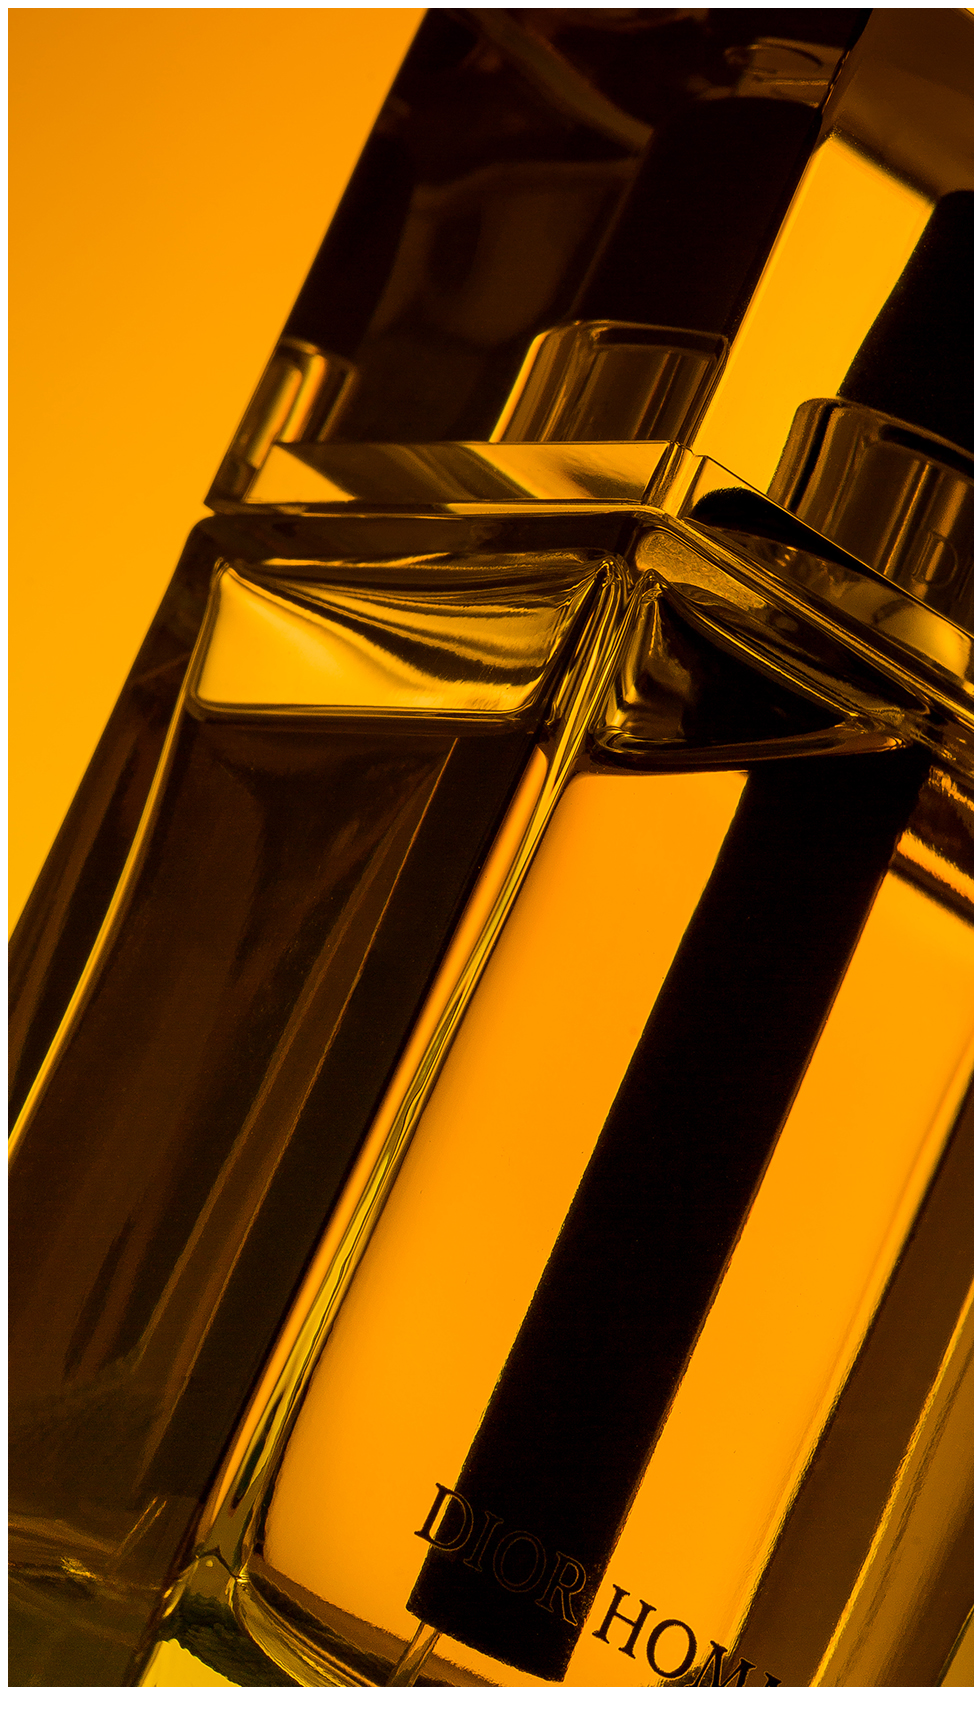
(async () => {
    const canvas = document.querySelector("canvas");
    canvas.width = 974;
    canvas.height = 1734;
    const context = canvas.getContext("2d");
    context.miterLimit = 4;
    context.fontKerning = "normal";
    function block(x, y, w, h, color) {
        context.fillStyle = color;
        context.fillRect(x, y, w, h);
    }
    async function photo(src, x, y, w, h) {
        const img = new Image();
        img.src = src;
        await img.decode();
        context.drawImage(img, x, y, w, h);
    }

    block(0, 0, 974, 1734, "rgb(255, 255, 255)");
    await photo("media/1.png", 8, 8, 966, 1679);
})();
